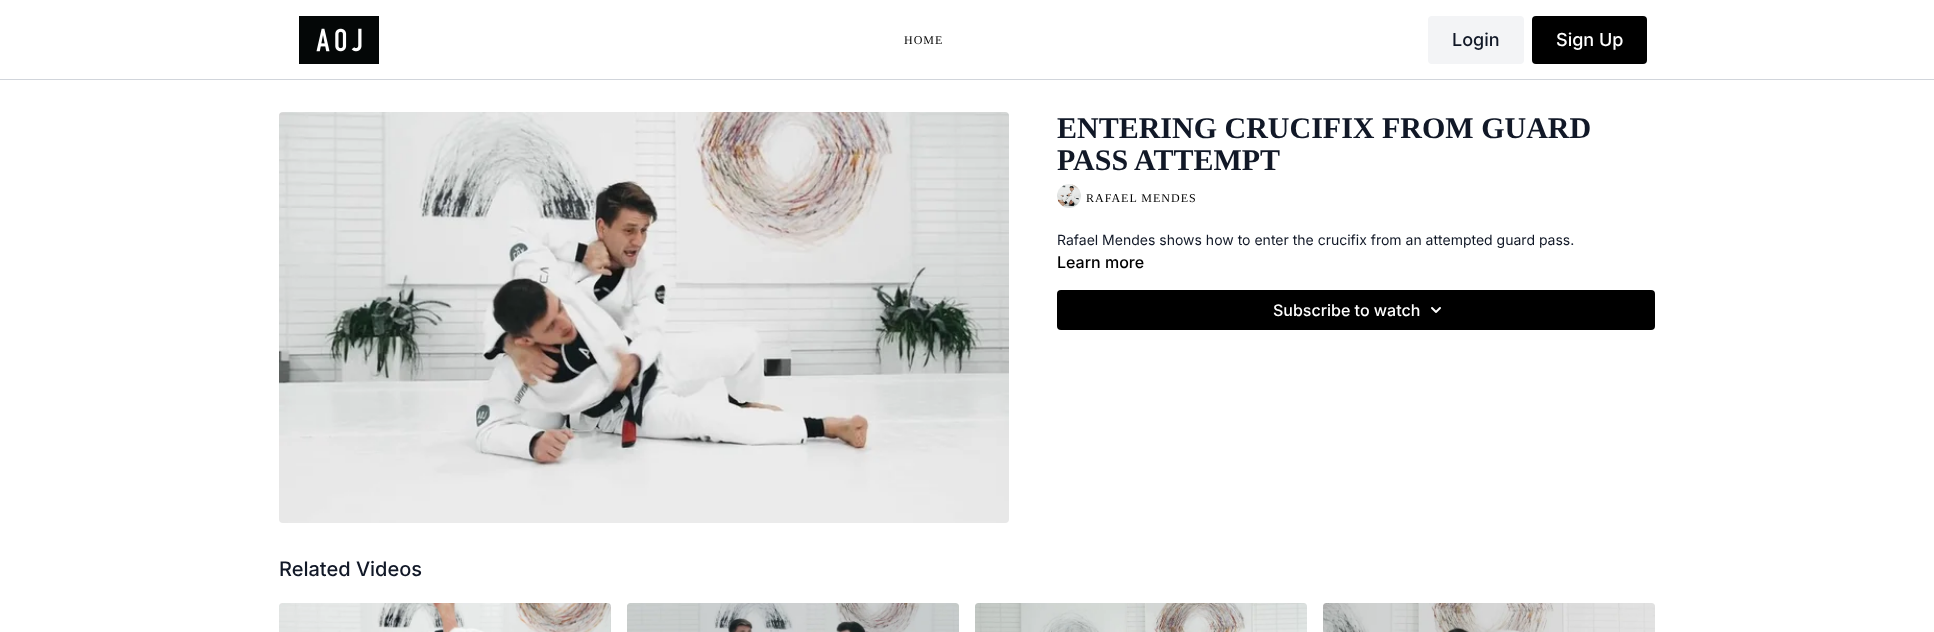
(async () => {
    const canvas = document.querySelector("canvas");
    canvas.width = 1934;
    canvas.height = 632;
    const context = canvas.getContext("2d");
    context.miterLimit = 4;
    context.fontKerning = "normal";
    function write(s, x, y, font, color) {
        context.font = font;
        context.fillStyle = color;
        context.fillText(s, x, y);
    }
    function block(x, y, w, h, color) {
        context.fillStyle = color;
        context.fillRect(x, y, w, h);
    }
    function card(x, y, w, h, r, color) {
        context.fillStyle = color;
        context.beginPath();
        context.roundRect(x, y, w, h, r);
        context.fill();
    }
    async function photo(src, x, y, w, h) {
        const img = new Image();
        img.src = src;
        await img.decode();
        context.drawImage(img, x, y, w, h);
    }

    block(0, 0, 1934, 632, "rgb(255, 255, 255)");
    block(0, 79, 1934, 1, "rgb(209, 213, 219)");
    await photo("media/1.png", 299, 16, 80, 48);
    context.letterSpacing = "1px";
    write("HOME", 904, 44, "12px Liberation Serif", "rgb(0, 0, 0)");
    card(1428, 16, 96, 48, 4, "rgb(243, 244, 246)");
    context.letterSpacing = "0px";
    write("Login", 1452, 46, "500 18px Inter", "rgb(17, 24, 39)");
    card(1532, 16, 115, 48, 4, "rgb(0, 0, 0)");
    write("Sign Up", 1556, 46, "500 18px Inter", "rgb(255, 255, 255)");
    await photo("media/2.png", 279, 112, 730, 411);
    write("ENTERING CRUCIFIX FROM GUARD", 1057, 138, "bold 30px Liberation Serif", "rgb(17, 24, 39)");
    write("PASS ATTEMPT", 1057, 170, "bold 30px Liberation Serif", "rgb(17, 24, 39)");
    await photo("media/3.png", 1057, 184, 24, 24);
    context.letterSpacing = "1px";
    write("RAFAEL MENDES", 1086, 202, "12px Liberation Serif", "rgb(0, 0, 0)");
    context.letterSpacing = "0px";
    write("Rafael Mendes shows how to enter the crucifix from an attempted guard pass.", 1057, 245, "14px Inter", "rgb(17, 24, 39)");
    write("Learn more", 1057, 268, "500 16px Inter", "rgb(0, 0, 0)");
    card(1057, 290, 598, 40, 4, "rgb(0, 0, 0)");
    write("Subscribe to watch", 1273, 316, "500 16px Inter", "rgb(255, 255, 255)");
    await photo("media/4.png", 1431, 307, 10, 6);
    write("Related Videos", 279, 576, "500 20px Inter", "rgb(17, 24, 39)");
    await photo("media/5.png", 279, 603, 332, 29);
    await photo("media/6.png", 627, 603, 332, 29);
    await photo("media/7.png", 975, 603, 332, 29);
    await photo("media/8.png", 1323, 603, 332, 29);
})();
